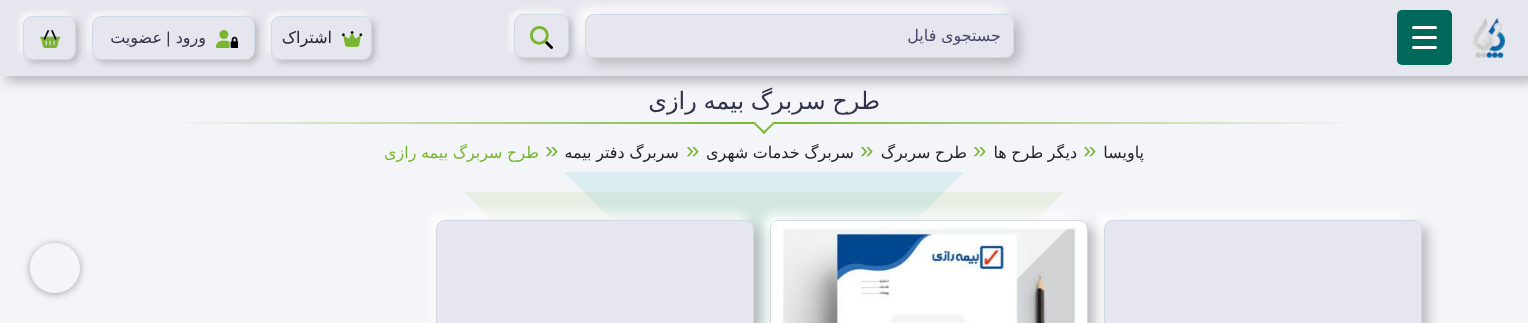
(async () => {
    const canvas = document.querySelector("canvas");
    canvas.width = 1528;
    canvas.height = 323;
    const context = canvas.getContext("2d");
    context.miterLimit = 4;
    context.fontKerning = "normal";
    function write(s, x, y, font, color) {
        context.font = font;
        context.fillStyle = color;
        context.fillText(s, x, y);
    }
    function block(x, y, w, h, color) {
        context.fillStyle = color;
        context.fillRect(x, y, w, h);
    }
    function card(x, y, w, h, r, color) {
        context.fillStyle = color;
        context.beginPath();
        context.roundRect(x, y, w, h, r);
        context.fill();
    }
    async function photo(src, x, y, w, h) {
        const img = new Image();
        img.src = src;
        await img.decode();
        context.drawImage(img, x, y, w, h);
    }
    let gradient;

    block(0, 0, 1528, 323, "rgb(243, 245, 249)");
    context.fillStyle = "rgb(255, 255, 255)";
    context.filter = "blur(6px)";
    context.beginPath();
    context.rect(-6, -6, 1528, 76);
    context.fill();
    context.filter = "none";
    context.fillStyle = "rgb(184, 185, 190)";
    context.filter = "blur(6px)";
    context.beginPath();
    context.rect(6, 6, 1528, 76);
    context.fill();
    context.filter = "none";
    block(0, 0, 1528, 76, "rgb(230, 231, 238)");
    await photo("media/1.png", 1473, 17, 32, 41);
    card(1397, 10, 55, 55, 5, "rgb(0, 105, 92)");
    card(1412, 36, 25, 3, 1.5, "rgb(255, 255, 255)");
    card(1412, 26, 25, 3, 1.5, "rgb(255, 255, 255)");
    card(1412, 46, 25, 3, 1.5, "rgb(255, 255, 255)");
    context.save();
    context.beginPath();
    context.moveTo(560, 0);
    context.lineTo(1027, 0);
    context.lineTo(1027, 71);
    context.lineTo(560, 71);
    context.closePath();
    context.moveTo(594, 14);
    context.lineTo(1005, 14);
    context.bezierCurveTo(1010, 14, 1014, 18, 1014, 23);
    context.lineTo(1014, 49);
    context.bezierCurveTo(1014, 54, 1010, 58, 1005, 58);
    context.lineTo(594, 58);
    context.bezierCurveTo(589, 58, 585, 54, 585, 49);
    context.lineTo(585, 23);
    context.bezierCurveTo(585, 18, 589, 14, 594, 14);
    context.closePath();
    context.clip("evenodd");
    context.filter = "blur(6px)";
    context.beginPath();
    context.roundRect(579, 8, 429, 44, 9);
    context.fill();
    context.filter = "none";
    context.restore();
    context.save();
    context.beginPath();
    context.moveTo(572, 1);
    context.lineTo(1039, 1);
    context.lineTo(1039, 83);
    context.lineTo(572, 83);
    context.closePath();
    context.moveTo(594, 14);
    context.lineTo(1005, 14);
    context.bezierCurveTo(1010, 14, 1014, 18, 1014, 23);
    context.lineTo(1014, 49);
    context.bezierCurveTo(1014, 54, 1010, 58, 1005, 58);
    context.lineTo(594, 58);
    context.bezierCurveTo(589, 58, 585, 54, 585, 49);
    context.lineTo(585, 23);
    context.bezierCurveTo(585, 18, 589, 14, 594, 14);
    context.closePath();
    context.clip("evenodd");
    context.fillStyle = "rgb(184, 185, 190)";
    context.filter = "blur(6px)";
    context.beginPath();
    context.roundRect(591, 20, 429, 44, 9);
    context.fill();
    context.filter = "none";
    context.restore();
    context.beginPath();
    context.roundRect(585.5, 14.5, 428, 43, 8.5);
    context.strokeStyle = "rgb(209, 217, 230)";
    context.stroke();
    context.wordSpacing = "-0.5px";
    context.direction = "rtl";
    write("جستجوی فایل", 1001, 41, "16px DejaVu Sans", "rgb(68, 71, 106)");
    context.fillStyle = "rgb(255, 255, 255)";
    context.filter = "blur(3px)";
    context.beginPath();
    context.roundRect(511, 11, 55, 44, 9);
    context.fill();
    context.filter = "none";
    context.fillStyle = "rgb(184, 185, 190)";
    context.filter = "blur(3px)";
    context.beginPath();
    context.roundRect(517, 17, 55, 44, 9);
    context.fill();
    context.filter = "none";
    context.fillStyle = "rgb(230, 231, 238)";
    context.beginPath();
    context.roundRect(514.5, 14.5, 54, 43, 8.5);
    context.fill();
    context.stroke();
    await photo("media/2.png", 530, 26, 23, 23);
    context.fillStyle = "rgb(255, 255, 255)";
    context.filter = "blur(3px)";
    context.beginPath();
    context.roundRect(268, 13, 101, 44, 9);
    context.fill();
    context.filter = "none";
    context.fillStyle = "rgb(184, 185, 190)";
    context.filter = "blur(3px)";
    context.beginPath();
    context.roundRect(274, 19, 101, 44, 9);
    context.fill();
    context.filter = "none";
    context.fillStyle = "rgb(230, 231, 238)";
    context.beginPath();
    context.roundRect(271.5, 16.5, 100, 43, 8.5);
    context.fill();
    context.stroke();
    await photo("media/3.png", 342, 31, 21, 16);
    context.letterSpacing = "0.5px";
    context.wordSpacing = "0px";
    write("اشتراک", 332, 43, "16px DejaVu Sans", "rgb(33, 37, 41)");
    context.fillStyle = "rgb(255, 255, 255)";
    context.filter = "blur(3px)";
    context.beginPath();
    context.roundRect(89, 13, 163, 44, 9);
    context.fill();
    context.filter = "none";
    context.fillStyle = "rgb(184, 185, 190)";
    context.filter = "blur(3px)";
    context.beginPath();
    context.roundRect(95, 19, 163, 44, 9);
    context.fill();
    context.filter = "none";
    context.fillStyle = "rgb(230, 231, 238)";
    context.beginPath();
    context.roundRect(92.5, 16.5, 162, 43, 8.5);
    context.fill();
    context.stroke();
    await photo("media/4.png", 216, 30, 22, 18);
    write("ورود", 206, 43, "16px DejaVu Sans", "rgb(49, 52, 75)");
    write("|", 171, 43, "16px Liberation Sans", "rgb(49, 52, 75)");
    write("عضویت", 162, 43, "16px DejaVu Sans", "rgb(49, 52, 75)");
    context.fillStyle = "rgb(255, 255, 255)";
    context.filter = "blur(3px)";
    context.beginPath();
    context.roundRect(20, 13, 53, 44, 9);
    context.fill();
    context.filter = "none";
    context.fillStyle = "rgb(184, 185, 190)";
    context.filter = "blur(3px)";
    context.beginPath();
    context.roundRect(26, 19, 53, 44, 9);
    context.fill();
    context.filter = "none";
    context.fillStyle = "rgb(230, 231, 238)";
    context.beginPath();
    context.roundRect(23.5, 16.5, 52, 43, 8.5);
    context.fill();
    context.stroke();
    await photo("media/5.png", 40, 30, 20, 18);
    context.letterSpacing = "0px";
    context.wordSpacing = "-1px";
    write("طرح سربرگ بیمه رازی", 880, 109, "24px DejaVu Sans", "rgb(49, 52, 75)");
    gradient = context.createLinearGradient(165, 123, 1363, 123);
    gradient.addColorStop(0, "rgb(243, 245, 249)");
    gradient.addColorStop(0.5, "rgb(121, 181, 48)");
    gradient.addColorStop(1, "rgb(243, 245, 249)");
    context.fillStyle = gradient;
    context.fillRect(165, 122, 1198, 2);
    context.fillStyle = "rgb(243, 245, 249)";
    context.beginPath();
    context.moveTo(764, 114.5);
    context.lineTo(774, 124);
    context.lineTo(764, 134);
    context.lineTo(754, 124);
    context.closePath();
    context.fill();
    context.fillStyle = "rgb(121, 181, 48)";
    context.beginPath();
    context.moveTo(772.5, 123);
    context.lineTo(774, 124);
    context.lineTo(764, 134);
    context.lineTo(762.5, 132.5);
    context.closePath();
    context.fill();
    context.beginPath();
    context.moveTo(755.5, 123);
    context.lineTo(765.5, 132.5);
    context.lineTo(764, 134);
    context.lineTo(754, 124);
    context.closePath();
    context.fill();
    context.wordSpacing = "0px";
    write("پاویسا", 1144, 158, "16px DejaVu Sans", "rgb(33, 37, 41)");
    context.direction = "ltr";
    write("»", 1083, 158, "24px Liberation Sans", "rgb(121, 181, 48)");
    context.wordSpacing = "-0.5px";
    context.direction = "rtl";
    write("دیگر طرح ها", 1077, 158, "16px DejaVu Sans", "rgb(33, 37, 41)");
    context.wordSpacing = "0px";
    context.direction = "ltr";
    write("»", 973, 158, "24px Liberation Sans", "rgb(121, 181, 48)");
    context.wordSpacing = "-0.5px";
    context.direction = "rtl";
    write("طرح سربرگ", 967, 158, "16px DejaVu Sans", "rgb(33, 37, 41)");
    context.wordSpacing = "0px";
    context.direction = "ltr";
    write("»", 860, 158, "24px Liberation Sans", "rgb(121, 181, 48)");
    context.wordSpacing = "-0.5px";
    context.direction = "rtl";
    write("سربرگ خدمات شهری", 854, 158, "16px DejaVu Sans", "rgb(33, 37, 41)");
    context.wordSpacing = "0px";
    context.direction = "ltr";
    write("»", 686, 158, "24px Liberation Sans", "rgb(121, 181, 48)");
    context.wordSpacing = "-0.5px";
    context.direction = "rtl";
    write("سربرگ دفتر بیمه", 679, 158, "16px DejaVu Sans", "rgb(33, 37, 41)");
    context.wordSpacing = "0px";
    context.direction = "ltr";
    write("»", 545, 158, "24px Liberation Sans", "rgb(121, 181, 48)");
    context.wordSpacing = "-0.5px";
    context.direction = "rtl";
    write("طرح سربرگ بیمه رازی", 539, 158, "16px DejaVu Sans", "rgb(121, 181, 48)");
    context.fillStyle = "rgb(231, 239, 229)";
    context.beginPath();
    context.moveTo(464, 192);
    context.lineTo(1064, 192);
    context.lineTo(764, 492);
    context.closePath();
    context.fill();
    context.fillStyle = "rgba(23, 162, 184, 0.1)";
    context.beginPath();
    context.moveTo(564, 172);
    context.lineTo(964, 172);
    context.lineTo(764, 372);
    context.closePath();
    context.fill();
    context.fillStyle = "rgb(255, 255, 255)";
    context.filter = "blur(6px)";
    context.beginPath();
    context.roundRect(1098, 214, 318, 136, 9);
    context.fill();
    context.filter = "none";
    context.fillStyle = "rgb(184, 185, 190)";
    context.filter = "blur(6px)";
    context.beginPath();
    context.roundRect(1110, 226, 318, 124, 9);
    context.fill();
    context.filter = "none";
    context.fillStyle = "rgb(230, 231, 238)";
    context.beginPath();
    context.roundRect(1104.5, 220.5, 317, 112, 8.5);
    context.fill();
    context.stroke();
    context.fillStyle = "rgb(255, 255, 255)";
    context.filter = "blur(6px)";
    context.beginPath();
    context.roundRect(764, 214, 318, 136, 9);
    context.fill();
    context.filter = "none";
    context.fillStyle = "rgb(184, 185, 190)";
    context.filter = "blur(6px)";
    context.beginPath();
    context.roundRect(776, 226, 318, 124, 9);
    context.fill();
    context.filter = "none";
    context.beginPath();
    context.roundRect(770.5, 220.5, 317, 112, 8.5);
    context.stroke();
    await photo("media/6.png", 771, 221, 316, 102);
    context.fillStyle = "rgb(255, 255, 255)";
    context.filter = "blur(6px)";
    context.beginPath();
    context.roundRect(430, 214, 318, 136, 9);
    context.fill();
    context.filter = "none";
    context.fillStyle = "rgb(184, 185, 190)";
    context.filter = "blur(6px)";
    context.beginPath();
    context.roundRect(442, 226, 318, 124, 9);
    context.fill();
    context.filter = "none";
    context.fillStyle = "rgb(230, 231, 238)";
    context.beginPath();
    context.roundRect(436.5, 220.5, 317, 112, 8.5);
    context.fill();
    context.stroke();
    context.save();
    context.beginPath();
    context.moveTo(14, 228);
    context.lineTo(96, 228);
    context.lineTo(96, 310);
    context.lineTo(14, 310);
    context.closePath();
    context.moveTo(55, 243);
    context.bezierCurveTo(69, 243, 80, 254, 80, 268);
    context.bezierCurveTo(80, 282, 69, 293, 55, 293);
    context.bezierCurveTo(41, 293, 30, 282, 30, 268);
    context.bezierCurveTo(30, 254, 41, 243, 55, 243);
    context.closePath();
    context.clip("evenodd");
    context.fillStyle = "rgba(0, 0, 0, 0.15)";
    context.filter = "blur(5px)";
    context.beginPath();
    context.roundRect(30, 244, 50, 50, 25);
    context.fill();
    context.filter = "none";
    context.restore();
    context.save();
    context.beginPath();
    context.moveTo(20, 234);
    context.lineTo(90, 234);
    context.lineTo(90, 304);
    context.lineTo(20, 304);
    context.closePath();
    context.moveTo(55, 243);
    context.bezierCurveTo(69, 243, 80, 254, 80, 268);
    context.bezierCurveTo(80, 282, 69, 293, 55, 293);
    context.bezierCurveTo(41, 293, 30, 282, 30, 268);
    context.bezierCurveTo(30, 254, 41, 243, 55, 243);
    context.closePath();
    context.clip("evenodd");
    context.fillStyle = "rgba(0, 0, 0, 0.2)";
    context.filter = "blur(3px)";
    context.beginPath();
    context.roundRect(30, 244, 50, 50, 25);
    context.fill();
    context.filter = "none";
    context.restore();
})();
